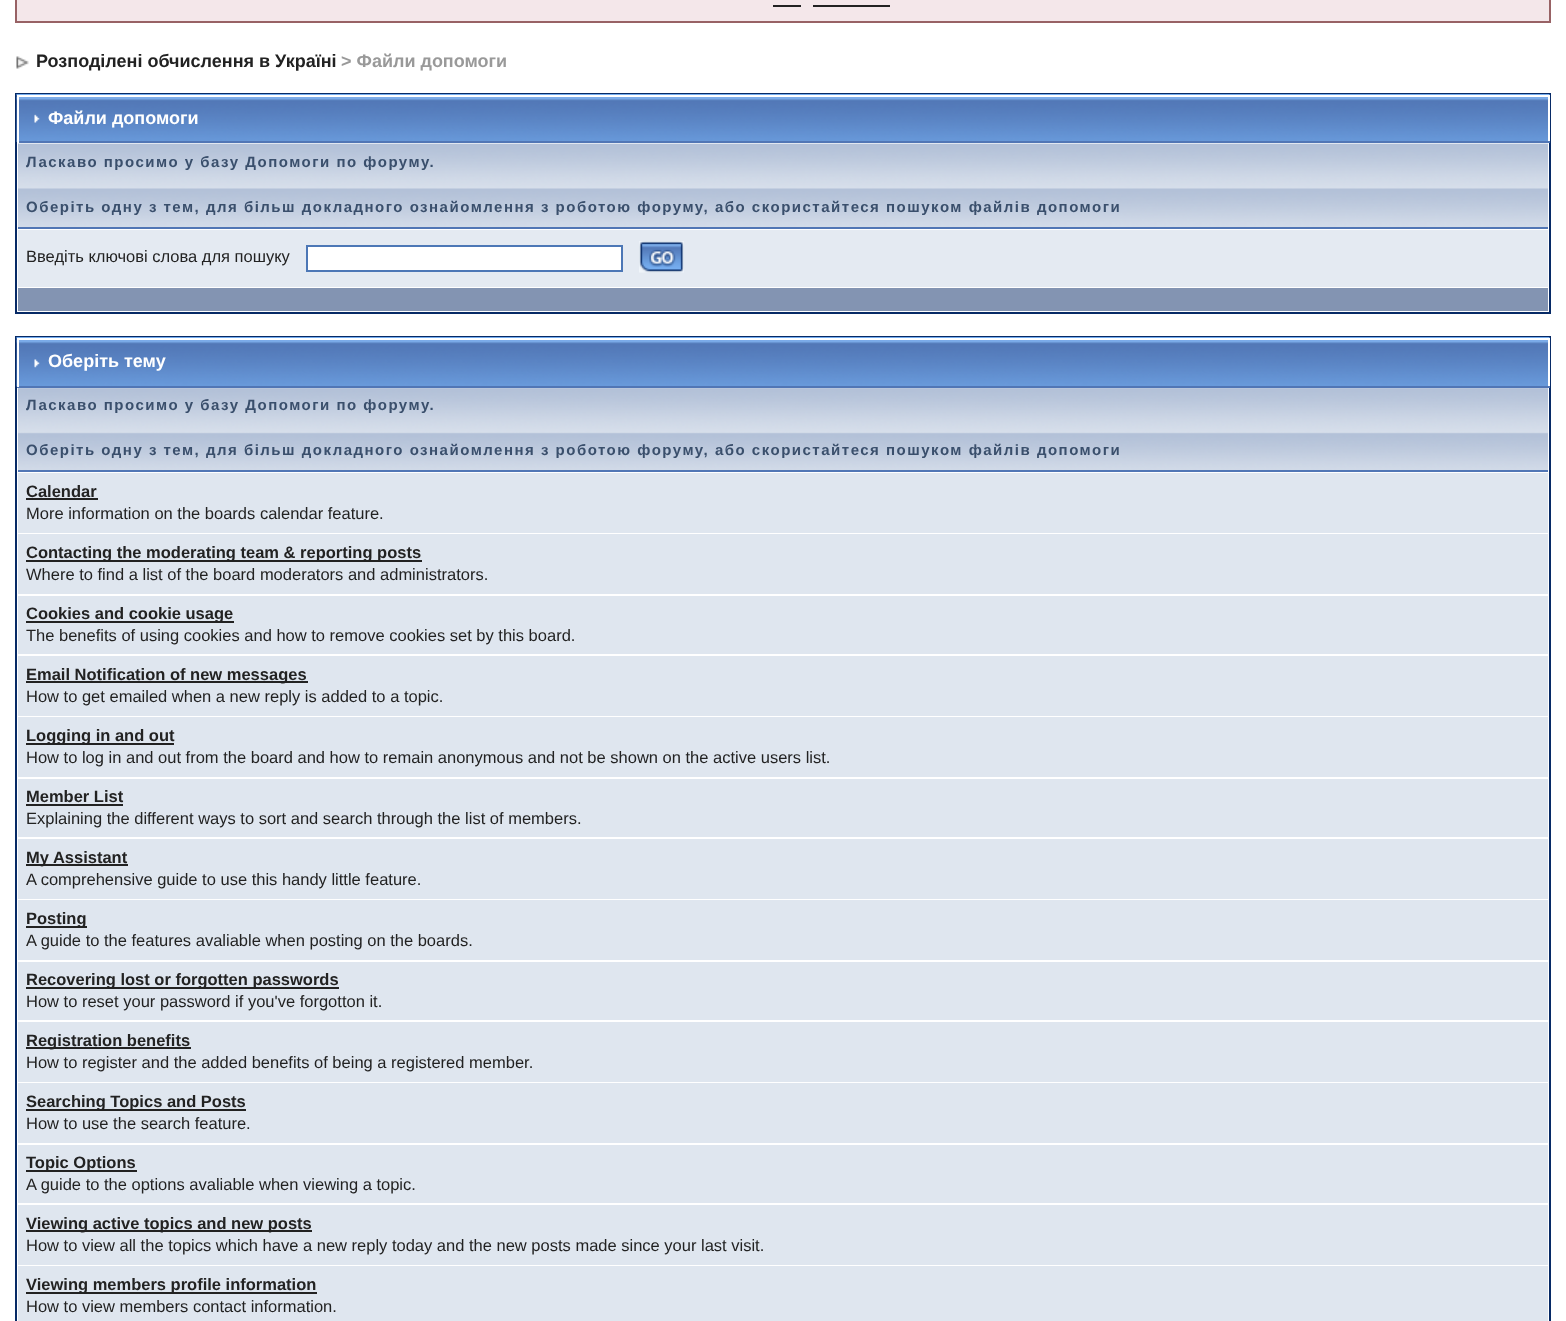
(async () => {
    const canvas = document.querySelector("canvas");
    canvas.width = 1566;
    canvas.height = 1321;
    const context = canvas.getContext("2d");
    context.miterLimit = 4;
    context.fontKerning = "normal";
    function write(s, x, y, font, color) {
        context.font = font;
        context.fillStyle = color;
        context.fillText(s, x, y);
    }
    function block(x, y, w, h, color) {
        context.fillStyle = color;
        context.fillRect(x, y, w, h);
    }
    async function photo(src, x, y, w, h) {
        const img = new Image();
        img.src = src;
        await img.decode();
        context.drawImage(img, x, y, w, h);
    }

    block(0, 0, 1566, 1321, "rgb(255, 255, 255)");
    context.fillStyle = "rgb(244, 231, 234)";
    context.beginPath();
    context.rect(16, -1, 1534, 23);
    context.fill();
    context.strokeStyle = "rgb(152, 98, 101)";
    context.lineWidth = 2;
    context.stroke();
    block(773, 5, 28, 2, "rgb(34, 34, 34)");
    block(813, 5, 77, 2, "rgb(34, 34, 34)");
    await photo("media/1.png", 16, 56, 13, 13);
    write("Розподілені обчислення в Україні", 36, 67, "bold 18px Liberation Sans", "rgb(34, 34, 34)");
    write("> Файли допомоги", 341, 67, "bold 18px Liberation Sans", "rgb(153, 153, 153)");
    context.strokeStyle = "rgb(7, 42, 102)";
    context.strokeRect(16, 94, 1534, 219);
    await photo("media/2.png", 16, 94, 1534, 48);
    block(17, 95, 1533, 2, "rgb(255, 255, 255)");
    block(1548, 95, 2, 48, "rgb(255, 255, 255)");
    block(17, 141, 1533, 2, "rgb(81, 118, 181)");
    block(17, 95, 2, 48, "rgb(255, 255, 255)");
    await photo("media/3.png", 34, 114, 6, 9);
    write("Файли допомоги", 48, 124, "bold 18px Liberation Sans", "rgb(255, 255, 255)");
    await photo("media/4.png", 18, 143, 1530, 84);
    block(18, 227, 1530, 2, "rgb(81, 118, 181)");
    context.letterSpacing = "1.5px";
    write("Ласкаво просимо у базу Допомоги по форуму.", 26, 167, "bold 15px Liberation Sans", "rgb(58, 79, 108)");
    write("Оберіть одну з тем, для більш докладного ознайомлення з роботою форуму, або скористайтеся пошуком файлів допомоги", 26, 212, "bold 15px Liberation Sans", "rgb(58, 79, 108)");
    block(18, 230, 1530, 57, "rgb(228, 234, 242)");
    context.letterSpacing = "0px";
    write("Введіть ключові слова для пошуку", 26, 262, "16.5px Liberation Sans", "rgb(34, 34, 34)");
    context.fillStyle = "rgb(255, 255, 255)";
    context.beginPath();
    context.rect(307, 246, 315, 25);
    context.fill();
    context.strokeStyle = "rgb(76, 119, 182)";
    context.stroke();
    await photo("media/5.png", 639, 241, 45, 32);
    block(18, 288, 1530, 23, "rgb(131, 148, 178)");
    context.strokeStyle = "rgb(7, 42, 102)";
    context.strokeRect(16, 337, 1534, 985);
    await photo("media/6.png", 16, 337, 1534, 50);
    block(17, 338, 1533, 2, "rgb(255, 255, 255)");
    block(1548, 338, 2, 49, "rgb(255, 255, 255)");
    block(17, 386, 1533, 2, "rgb(81, 118, 181)");
    block(17, 338, 2, 49, "rgb(255, 255, 255)");
    await photo("media/7.png", 34, 359, 6, 9);
    write("Оберіть тему", 48, 367, "bold 18px Liberation Sans", "rgb(255, 255, 255)");
    await photo("media/8.png", 18, 388, 1530, 82);
    block(18, 470, 1530, 2, "rgb(81, 118, 181)");
    context.letterSpacing = "1.5px";
    write("Ласкаво просимо у базу Допомоги по форуму.", 26, 410, "bold 15px Liberation Sans", "rgb(58, 79, 108)");
    write("Оберіть одну з тем, для більш докладного ознайомлення з роботою форуму, або скористайтеся пошуком файлів допомоги", 26, 455, "bold 15px Liberation Sans", "rgb(58, 79, 108)");
    block(18, 473, 1530, 60, "rgb(223, 230, 239)");
    context.letterSpacing = "0px";
    write("Calendar", 26, 497, "bold 16.5px Liberation Sans", "rgb(34, 34, 34)");
    block(26, 498, 72, 2, "rgb(34, 34, 34)");
    write("More information on the boards calendar feature.", 26, 519, "16.5px Liberation Sans", "rgb(34, 34, 34)");
    block(18, 534, 1530, 60, "rgb(223, 230, 239)");
    block(26, 560, 396, 2, "rgb(34, 34, 34)");
    write("Contacting the moderating team & reporting posts", 26, 558, "bold 16.5px Liberation Sans", "rgb(34, 34, 34)");
    write("Where to find a list of the board moderators and administrators.", 26, 580, "16.5px Liberation Sans", "rgb(34, 34, 34)");
    block(18, 596, 1530, 58, "rgb(223, 230, 239)");
    block(26, 621, 208, 2, "rgb(34, 34, 34)");
    write("Cookies and cookie usage", 26, 619, "bold 16.5px Liberation Sans", "rgb(34, 34, 34)");
    write("The benefits of using cookies and how to remove cookies set by this board.", 26, 641, "16.5px Liberation Sans", "rgb(34, 34, 34)");
    block(18, 656, 1530, 60, "rgb(223, 230, 239)");
    block(26, 681, 282, 2, "rgb(34, 34, 34)");
    write("Email Notification of new messages", 26, 680, "bold 16.5px Liberation Sans", "rgb(34, 34, 34)");
    write("How to get emailed when a new reply is added to a topic.", 26, 702, "16.5px Liberation Sans", "rgb(34, 34, 34)");
    block(18, 717, 1530, 60, "rgb(223, 230, 239)");
    block(26, 743, 148, 2, "rgb(34, 34, 34)");
    write("Logging in and out", 26, 741, "bold 16.5px Liberation Sans", "rgb(34, 34, 34)");
    write("How to log in and out from the board and how to remain anonymous and not be shown on the active users list.", 26, 763, "16.5px Liberation Sans", "rgb(34, 34, 34)");
    block(18, 779, 1530, 58, "rgb(223, 230, 239)");
    write("Member List", 26, 802, "bold 16.5px Liberation Sans", "rgb(34, 34, 34)");
    block(26, 804, 97, 2, "rgb(34, 34, 34)");
    write("Explaining the different ways to sort and search through the list of members.", 26, 824, "16.5px Liberation Sans", "rgb(34, 34, 34)");
    block(18, 839, 1530, 60, "rgb(223, 230, 239)");
    block(26, 864, 102, 2, "rgb(34, 34, 34)");
    write("My Assistant", 26, 863, "bold 16.5px Liberation Sans", "rgb(34, 34, 34)");
    write("A comprehensive guide to use this handy little feature.", 26, 885, "16.5px Liberation Sans", "rgb(34, 34, 34)");
    block(18, 900, 1530, 60, "rgb(223, 230, 239)");
    block(26, 926, 61, 2, "rgb(34, 34, 34)");
    write("Posting", 26, 924, "bold 16.5px Liberation Sans", "rgb(34, 34, 34)");
    write("A guide to the features avaliable when posting on the boards.", 26, 946, "16.5px Liberation Sans", "rgb(34, 34, 34)");
    block(18, 962, 1530, 58, "rgb(223, 230, 239)");
    block(26, 987, 313, 2, "rgb(34, 34, 34)");
    write("Recovering lost or forgotten passwords", 26, 985, "bold 16.5px Liberation Sans", "rgb(34, 34, 34)");
    write("How to reset your password if you've forgotton it.", 26, 1007, "16.5px Liberation Sans", "rgb(34, 34, 34)");
    block(18, 1022, 1530, 60, "rgb(223, 230, 239)");
    block(26, 1047, 165, 2, "rgb(34, 34, 34)");
    write("Registration benefits", 26, 1046, "bold 16.5px Liberation Sans", "rgb(34, 34, 34)");
    write("How to register and the added benefits of being a registered member.", 26, 1068, "16.5px Liberation Sans", "rgb(34, 34, 34)");
    block(18, 1083, 1530, 60, "rgb(223, 230, 239)");
    block(26, 1109, 220, 2, "rgb(34, 34, 34)");
    write("Searching Topics and Posts", 26, 1107, "bold 16.5px Liberation Sans", "rgb(34, 34, 34)");
    write("How to use the search feature.", 26, 1129, "16.5px Liberation Sans", "rgb(34, 34, 34)");
    block(18, 1145, 1530, 58, "rgb(223, 230, 239)");
    block(26, 1170, 111, 2, "rgb(34, 34, 34)");
    write("Topic Options", 26, 1168, "bold 16.5px Liberation Sans", "rgb(34, 34, 34)");
    write("A guide to the options avaliable when viewing a topic.", 26, 1190, "16.5px Liberation Sans", "rgb(34, 34, 34)");
    block(18, 1205, 1530, 60, "rgb(223, 230, 239)");
    block(26, 1230, 286, 2, "rgb(34, 34, 34)");
    write("Viewing active topics and new posts", 26, 1229, "bold 16.5px Liberation Sans", "rgb(34, 34, 34)");
    write("How to view all the topics which have a new reply today and the new posts made since your last visit.", 26, 1251, "16.5px Liberation Sans", "rgb(34, 34, 34)");
    block(18, 1266, 1530, 55, "rgb(223, 230, 239)");
    block(26, 1292, 291, 2, "rgb(34, 34, 34)");
    write("Viewing members profile information", 26, 1290, "bold 16.5px Liberation Sans", "rgb(34, 34, 34)");
    write("How to view members contact information.", 26, 1312, "16.5px Liberation Sans", "rgb(34, 34, 34)");
})();
